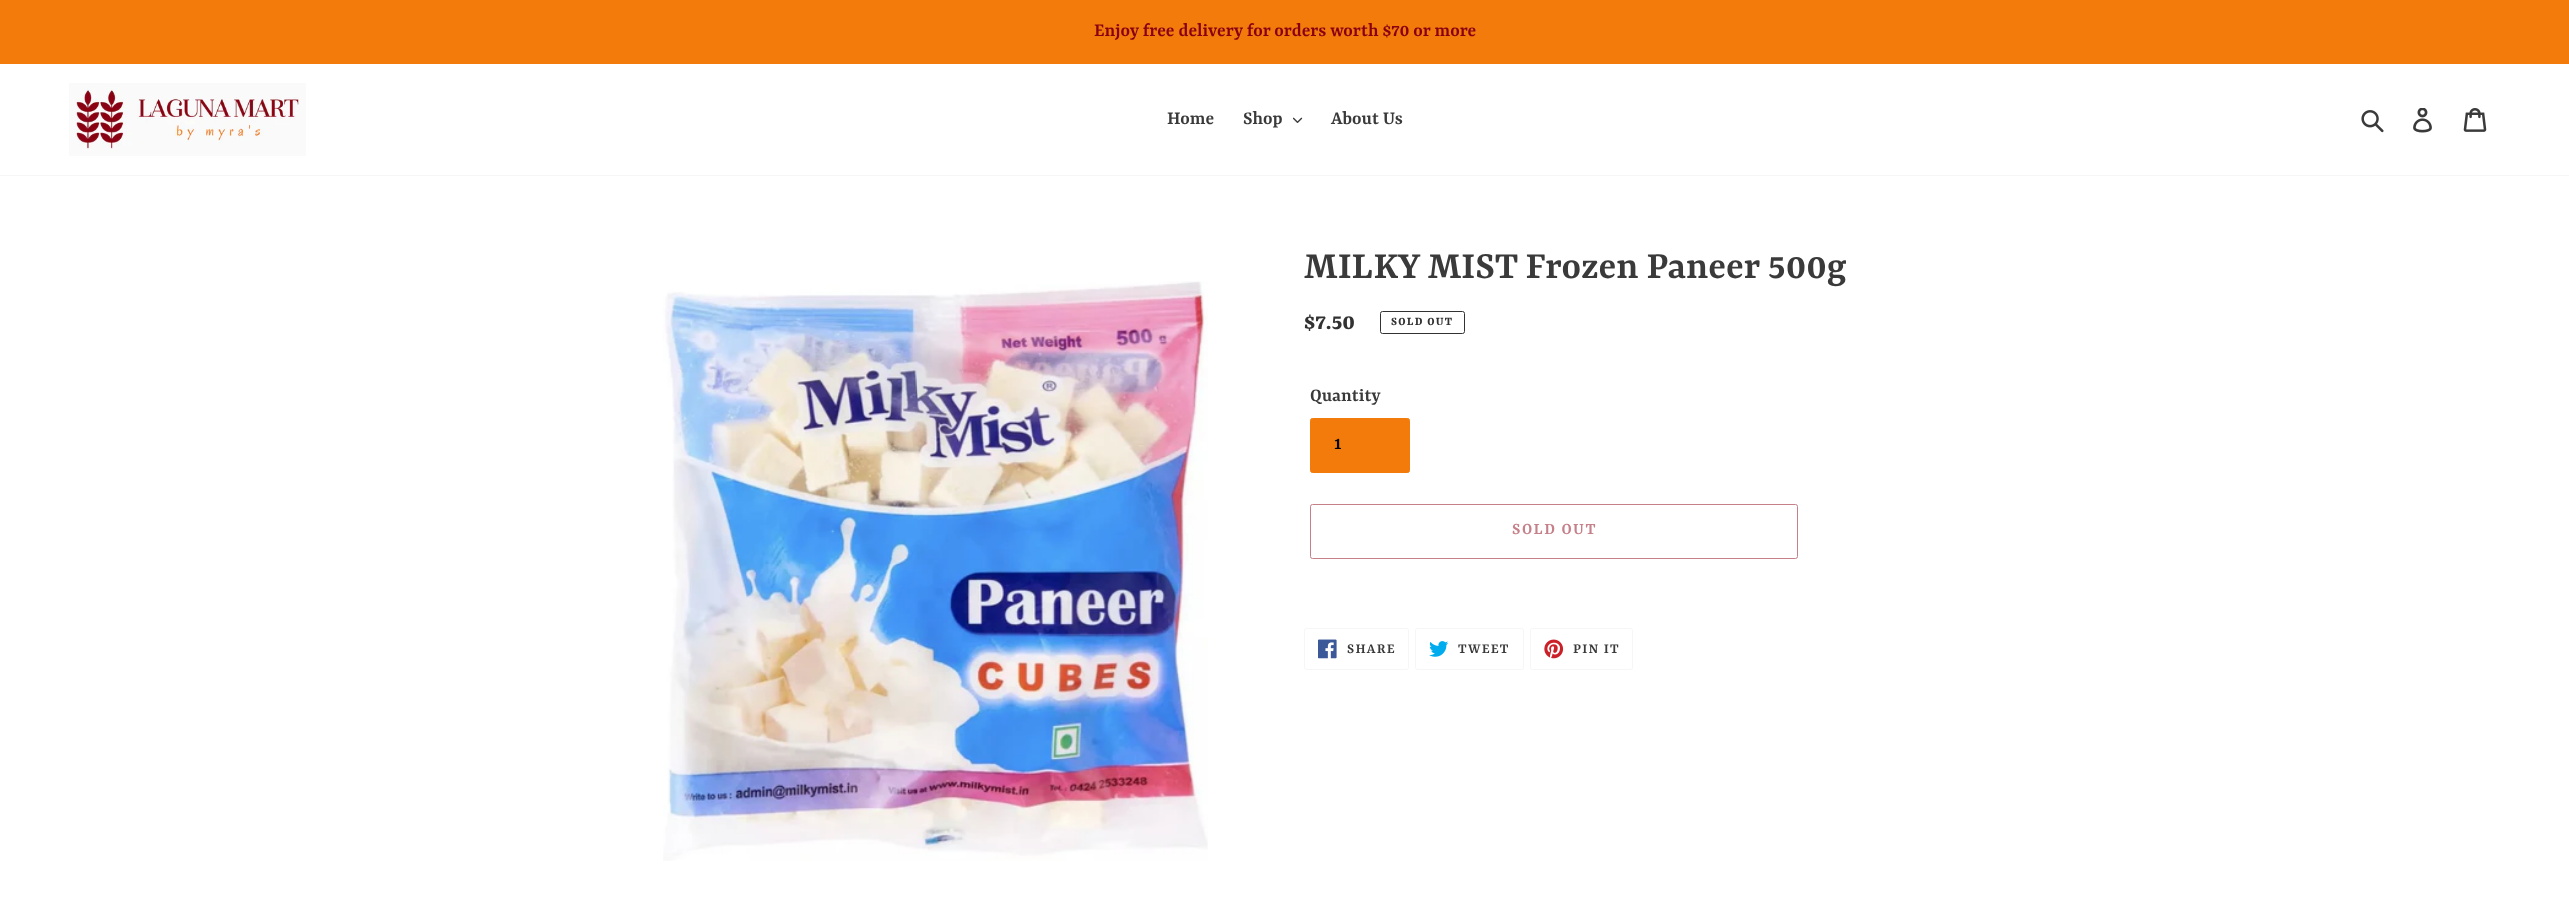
(async () => {
    const canvas = document.querySelector("canvas");
    canvas.width = 2569;
    canvas.height = 909;
    const context = canvas.getContext("2d");
    context.miterLimit = 4;
    context.fontKerning = "normal";
    function write(s, x, y, font, color) {
        context.font = font;
        context.fillStyle = color;
        context.fillText(s, x, y);
    }
    function block(x, y, w, h, color) {
        context.fillStyle = color;
        context.fillRect(x, y, w, h);
    }
    async function photo(src, x, y, w, h) {
        const img = new Image();
        img.src = src;
        await img.decode();
        context.drawImage(img, x, y, w, h);
    }

    block(0, 0, 2569, 909, "rgb(255, 255, 255)");
    block(0, 0, 2569, 64, "rgb(242, 123, 11)");
    write("Enjoy free delivery for orders worth $70 or more", 1094, 36, "600 20px Yrsa", "rgb(138, 0, 19)");
    block(0, 175, 2569, 1, "rgb(246, 246, 246)");
    await photo("media/1.png", 69, 83, 237, 73);
    write("Home", 1167, 124, "600 20px Yrsa", "rgb(58, 58, 58)");
    write("Shop", 1243, 124, "600 20px Yrsa", "rgb(58, 58, 58)");
    await photo("media/2.png", 1293, 117, 10, 6);
    write("About Us", 1331, 124, "600 20px Yrsa", "rgb(58, 58, 58)");
    await photo("media/3.png", 2361, 110, 23, 23);
    await photo("media/4.png", 2413, 108, 19, 25);
    await photo("media/5.png", 2463, 108, 24, 24);
    await photo("media/6.png", 663, 281, 545, 580);
    write("MILKY MIST Frozen Paneer 500g", 1304, 278, "600 41.25px Yrsa", "rgb(58, 58, 58)");
    write("$7.50", 1304, 329, "bold 25px Yrsa", "rgb(51, 50, 50)");
    context.beginPath();
    context.roundRect(1380.5, 311.5, 84, 22, 2);
    context.strokeStyle = "rgb(51, 50, 50)";
    context.stroke();
    context.letterSpacing = "1.25px";
    write("SOLD OUT", 1391, 325, "bold 12.5px Yrsa", "rgb(51, 50, 50)");
    context.letterSpacing = "0px";
    write("Quantity", 1310, 401, "600 20px Yrsa", "rgb(58, 58, 58)");
    context.fillStyle = "rgb(242, 123, 11)";
    context.beginPath();
    context.roundRect(1310.5, 418.5, 99, 54, 2);
    context.fill();
    context.strokeStyle = "rgb(242, 123, 11)";
    context.stroke();
    write("1", 1334, 449, "600 20px Yrsa", "rgb(0, 0, 0)");
    context.beginPath();
    context.roundRect(1310.5, 504.5, 487, 54, 2);
    context.strokeStyle = "rgb(197, 128, 137)";
    context.stroke();
    context.letterSpacing = "1.5px";
    write("SOLD OUT", 1512, 534, "600 17.5px Yrsa", "rgb(197, 128, 137)");
    context.beginPath();
    context.roundRect(1304.5, 628.5, 104, 41, 2);
    context.strokeStyle = "rgb(246, 246, 246)";
    context.stroke();
    await photo("media/7.png", 1318, 639, 19, 20);
    context.letterSpacing = "1.25px";
    write("SHARE", 1347, 653, "600 15px Yrsa", "rgb(58, 58, 58)");
    context.beginPath();
    context.roundRect(1415.5, 628.5, 108, 41, 2);
    context.stroke();
    await photo("media/8.png", 1429, 641, 20, 16);
    write("TWEET", 1458, 653, "600 15px Yrsa", "rgb(58, 58, 58)");
    context.beginPath();
    context.roundRect(1530.5, 628.5, 102, 41, 2);
    context.stroke();
    await photo("media/9.png", 1544, 639, 20, 20);
    write("PIN IT", 1573, 653, "600 15px Yrsa", "rgb(58, 58, 58)");
})();
